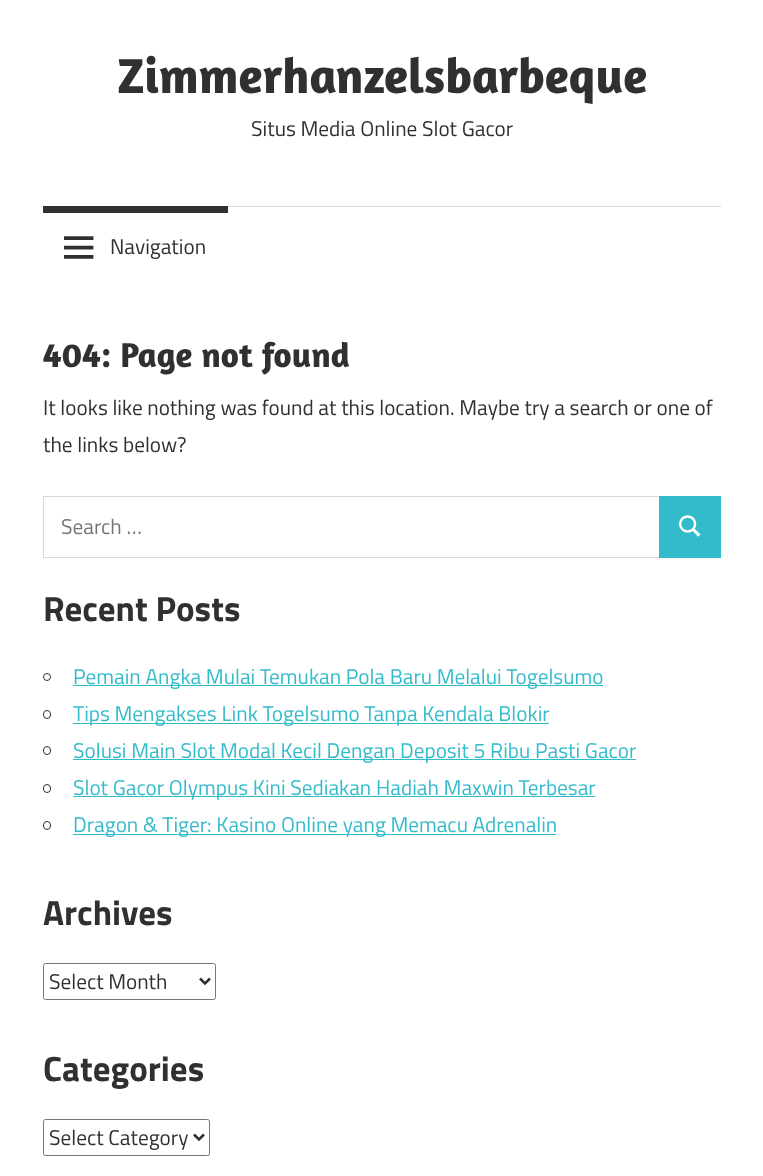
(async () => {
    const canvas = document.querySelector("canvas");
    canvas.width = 763;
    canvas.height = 1176;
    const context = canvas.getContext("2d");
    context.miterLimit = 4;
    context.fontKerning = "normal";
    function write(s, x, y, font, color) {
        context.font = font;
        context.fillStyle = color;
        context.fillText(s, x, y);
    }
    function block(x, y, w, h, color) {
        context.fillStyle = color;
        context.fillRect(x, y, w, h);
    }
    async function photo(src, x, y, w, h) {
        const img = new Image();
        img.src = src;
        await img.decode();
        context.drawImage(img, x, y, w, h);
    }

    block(0, 0, 763, 1176, "rgb(255, 255, 255)");
    write("Zimmerhanzelsbarbeque", 117, 93, "bold 50px Amaranth", "rgb(48, 48, 48)");
    write("Situs Media Online Slot Gacor", 251, 136, "21.25px Titillium Web", "rgb(48, 48, 48)");
    block(228, 206, 493, 1, "rgb(217, 217, 217)");
    block(43, 206, 185, 7, "rgb(48, 48, 48)");
    await photo("media/1.png", 64, 236, 30, 23);
    write("Navigation", 110, 254, "21.25px Titillium Web", "rgb(48, 48, 48)");
    write("404: Page not found", 43, 367, "bold 35px Amaranth", "rgb(48, 48, 48)");
    write("It looks like nothing was found at this location. Maybe try a search or one of", 43, 415, "21.25px Titillium Web", "rgb(48, 48, 48)");
    write("the links below?", 43, 452, "21.25px Titillium Web", "rgb(48, 48, 48)");
    context.strokeStyle = "rgb(217, 217, 217)";
    context.strokeRect(43.5, 496.5, 616, 61);
    write("Search …", 61, 534, "21.25px Titillium Web", "rgb(117, 117, 117)");
    block(659, 496, 62, 62, "rgb(51, 187, 204)");
    await photo("media/2.png", 679, 515, 22, 22);
    write("Recent Posts", 43, 621, "bold 35px Titillium Web", "rgb(48, 48, 48)");
    context.beginPath();
    context.arc(47, 677, 3.5, 0, Math.PI * 2);
    context.strokeStyle = "rgb(48, 48, 48)";
    context.stroke();
    block(73, 685, 530, 1, "rgb(51, 187, 204)");
    write("Pemain Angka Mulai Temukan Pola Baru Melalui Togelsumo", 73, 684, "21.25px Titillium Web", "rgb(51, 187, 204)");
    context.beginPath();
    context.roundRect(43.5, 710.5, 7, 8, 3.5);
    context.stroke();
    block(73, 723, 476, 1, "rgb(51, 187, 204)");
    write("Tips Mengakses Link Togelsumo Tanpa Kendala Blokir", 73, 721, "21.25px Titillium Web", "rgb(51, 187, 204)");
    context.beginPath();
    context.roundRect(43.5, 746.5, 7, 8, 3.5);
    context.stroke();
    block(73, 759, 563, 1, "rgb(51, 187, 204)");
    write("Solusi Main Slot Modal Kecil Dengan Deposit 5 Ribu Pasti Gacor", 73, 758, "21.25px Titillium Web", "rgb(51, 187, 204)");
    context.beginPath();
    context.roundRect(43.5, 784.5, 7, 8, 3.5);
    context.stroke();
    block(73, 796, 522, 1, "rgb(51, 187, 204)");
    write("Slot Gacor Olympus Kini Sediakan Hadiah Maxwin Terbesar", 73, 795, "21.25px Titillium Web", "rgb(51, 187, 204)");
    context.beginPath();
    context.roundRect(43.5, 821.5, 7, 8, 3.5);
    context.stroke();
    block(73, 834, 483, 1, "rgb(51, 187, 204)");
    write("Dragon & Tiger: Kasino Online yang Memacu Adrenalin", 73, 832, "21.25px Titillium Web", "rgb(51, 187, 204)");
    write("Archives", 43, 925, "bold 35px Titillium Web", "rgb(48, 48, 48)");
    context.beginPath();
    context.roundRect(43.5, 963.5, 172, 36, 2);
    context.strokeStyle = "rgb(118, 118, 118)";
    context.stroke();
    context.beginPath();
    context.moveTo(200, 978.5);
    context.lineTo(205, 983.5);
    context.lineTo(210, 978.5);
    context.strokeStyle = "rgb(48, 48, 48)";
    context.lineWidth = 2.5;
    context.stroke();
    write("Select Month", 49, 989, "21.25px Titillium Web", "rgb(48, 48, 48)");
    write("Categories", 43, 1081, "bold 35px Titillium Web", "rgb(48, 48, 48)");
    context.beginPath();
    context.roundRect(43.5, 1119.5, 166, 36, 2);
    context.strokeStyle = "rgb(118, 118, 118)";
    context.lineWidth = 1;
    context.stroke();
    context.beginPath();
    context.moveTo(194, 1134.5);
    context.lineTo(199, 1139.5);
    context.lineTo(204, 1134.5);
    context.strokeStyle = "rgb(48, 48, 48)";
    context.lineWidth = 2.5;
    context.stroke();
    write("Select Category", 49, 1145, "21.25px Titillium Web", "rgb(48, 48, 48)");
})();
